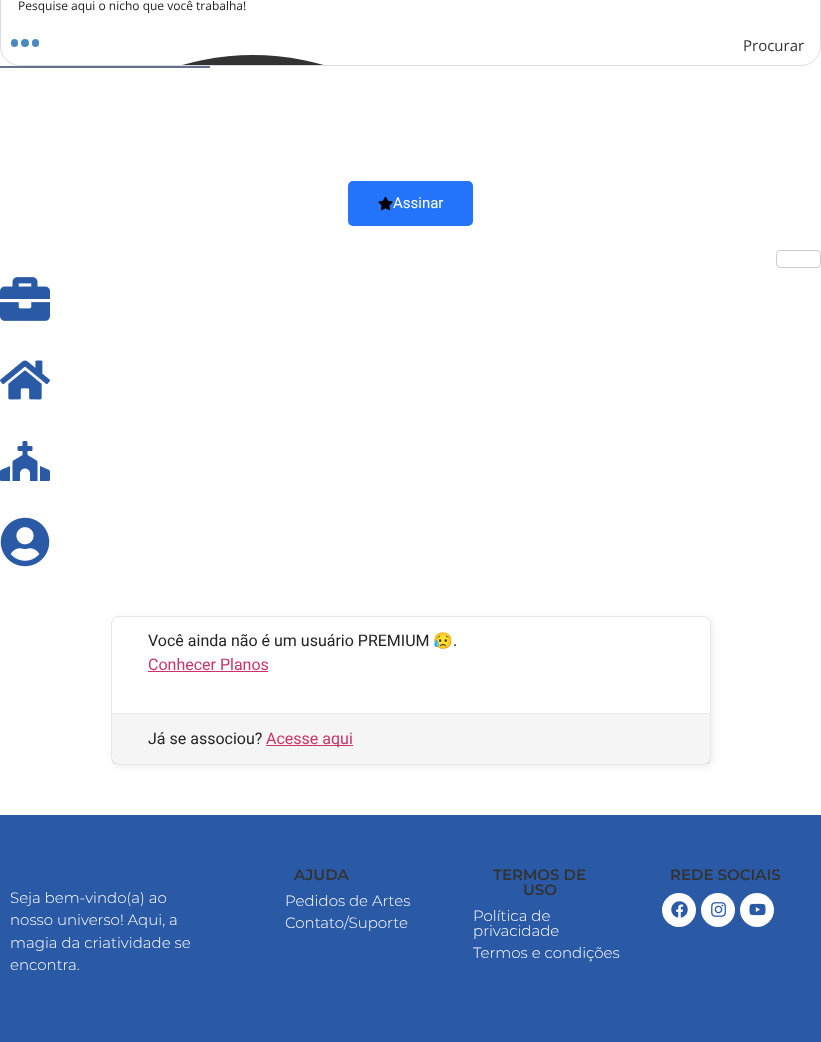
(async () => {
    const canvas = document.querySelector("canvas");
    canvas.width = 821;
    canvas.height = 1042;
    const context = canvas.getContext("2d");
    context.miterLimit = 4;
    context.fontKerning = "normal";
    function write(s, x, y, font, color) {
        context.font = font;
        context.fillStyle = color;
        context.fillText(s, x, y);
    }
    function block(x, y, w, h, color) {
        context.fillStyle = color;
        context.fillRect(x, y, w, h);
    }
    function card(x, y, w, h, r, color) {
        context.fillStyle = color;
        context.beginPath();
        context.roundRect(x, y, w, h, r);
        context.fill();
    }
    async function photo(src, x, y, w, h) {
        const img = new Image();
        img.src = src;
        await img.decode();
        context.drawImage(img, x, y, w, h);
    }

    block(0, 0, 821, 1042, "rgb(255, 255, 255)");
    context.beginPath();
    context.roundRect(0.5, -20.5, 820, 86, 19.5);
    context.strokeStyle = "rgba(100, 115, 139, 0.25)";
    context.stroke();
    write("Pesquise aqui o nicho que você trabalha!", 18, 10, "12px Open Sans", "rgb(34, 34, 34)");
    card(11, 39, 7, 8, 3.5, "rgb(74, 137, 191)");
    context.beginPath();
    context.arc(25, 43, 4, 0, Math.PI * 2);
    context.fill();
    card(32, 39, 7, 8, 3.5, "rgb(74, 137, 191)");
    context.save();
    context.beginPath();
    context.rect(774, 25, 40, 40);
    context.clip();
    context.fillStyle = "rgb(255, 255, 255)";
    context.beginPath();
    context.moveTo(773, 26);
    context.lineTo(773, 65);
    context.lineTo(675, 65);
    context.lineTo(675, -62);
    context.lineTo(801, -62);
    context.bezierCurveTo(811, -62, 820, -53, 820, -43);
    context.lineTo(820, 46);
    context.bezierCurveTo(820, 52, 817, 57, 813, 61);
    context.lineTo(813, 26);
    context.closePath();
    context.fill();
    context.restore();
    write("Procurar", 743, 51, "15px Open Sans", "rgb(51, 51, 51)");
    block(0, 66, 210, 2, "rgb(100, 115, 139)");
    context.save();
    context.beginPath();
    context.roundRect(1, -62, 819, 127, 19);
    context.clip();
    context.fillStyle = "rgb(51, 51, 51)";
    context.beginPath();
    context.arc(253, 311, 256, 0, Math.PI * 2);
    context.fill();
    context.restore();
    card(348, 181, 125, 45, 5, "rgb(37, 117, 252)");
    await photo("media/1.png", 378, 196, 15, 15);
    write("Assinar", 393, 208, "15px Roboto", "rgb(255, 255, 255)");
    context.beginPath();
    context.roundRect(776.5, 250.5, 44, 17, 3.5);
    context.strokeStyle = "rgb(204, 204, 204)";
    context.stroke();
    await photo("media/2.png", 0, 277, 50, 44);
    await photo("media/3.png", 0, 360, 50, 40);
    await photo("media/4.png", 0, 441, 50, 40);
    await photo("media/5.png", 0, 517, 50, 50);
    context.fillStyle = "rgba(0, 0, 0, 0.07)";
    context.filter = "blur(3.5px)";
    context.beginPath();
    context.roundRect(113, 618, 600, 149, 8);
    context.fill();
    context.filter = "none";
    context.fillStyle = "rgb(255, 255, 255)";
    context.beginPath();
    context.roundRect(111.5, 616.5, 599, 148, 7.5);
    context.fill();
    context.strokeStyle = "rgb(232, 232, 232)";
    context.stroke();
    write("Você ainda não é um usuário PREMIUM", 148, 646, "16px Roboto", "rgb(34, 34, 34)");
    write("😥", 433, 646, "16px Noto Color Emoji", "rgb(34, 34, 34)");
    write(".", 453, 646, "16px Roboto", "rgb(34, 34, 34)");
    write("Conhecer Planos", 148, 670, "16px Roboto", "rgb(204, 51, 102)");
    block(148, 671, 120, 1, "rgb(204, 51, 102)");
    block(112, 714, 598, 50, "rgba(0, 0, 0, 0.04)");
    block(112, 713, 598, 1, "rgb(232, 232, 232)");
    write("Já se associou?", 148, 744, "16px Roboto", "rgb(34, 34, 34)");
    block(266, 745, 87, 1, "rgb(204, 51, 102)");
    write("Acesse aqui", 266, 744, "16px Roboto", "rgb(204, 51, 102)");
    block(0, 815, 821, 227, "rgb(42, 90, 166)");
    write("AJUDA", 294, 880, "600 15px Montserrat", "rgb(51, 51, 51)");
    write("Pedidos de Artes", 285, 906, "300 15px Montserrat", "rgb(255, 255, 255)");
    write("Contato/Suporte", 285, 928, "300 15px Montserrat", "rgb(255, 255, 255)");
    write("TERMOS DE", 493, 880, "600 15px Montserrat", "rgb(51, 51, 51)");
    write("USO", 523, 895, "600 15px Montserrat", "rgb(51, 51, 51)");
    write("Política de", 473, 921, "300 15px Montserrat", "rgb(255, 255, 255)");
    write("privacidade", 473, 936, "300 15px Montserrat", "rgb(255, 255, 255)");
    write("Termos e condições", 473, 958, "300 15px Montserrat", "rgb(255, 255, 255)");
    write("REDE SOCIAIS", 670, 880, "600 15px Montserrat", "rgb(51, 51, 51)");
    context.fillStyle = "rgb(255, 255, 255)";
    context.beginPath();
    context.arc(679, 910, 17, 0, Math.PI * 2);
    context.fill();
    await photo("media/6.png", 671, 901, 17, 17);
    context.beginPath();
    context.arc(718, 910, 17, 0, Math.PI * 2);
    context.fill();
    await photo("media/7.png", 711, 902, 15, 15);
    context.beginPath();
    context.arc(757, 910, 17, 0, Math.PI * 2);
    context.fill();
    await photo("media/8.png", 749, 903, 17, 13);
    write("Seja bem-vindo(a) ao", 10, 903, "300 15px Montserrat", "rgb(255, 255, 255)");
    write("nosso universo! Aqui, a", 10, 925, "300 15px Montserrat", "rgb(255, 255, 255)");
    write("magia da criatividade se", 10, 948, "300 15px Montserrat", "rgb(255, 255, 255)");
    write("encontra.", 10, 970, "300 15px Montserrat", "rgb(255, 255, 255)");
})();
